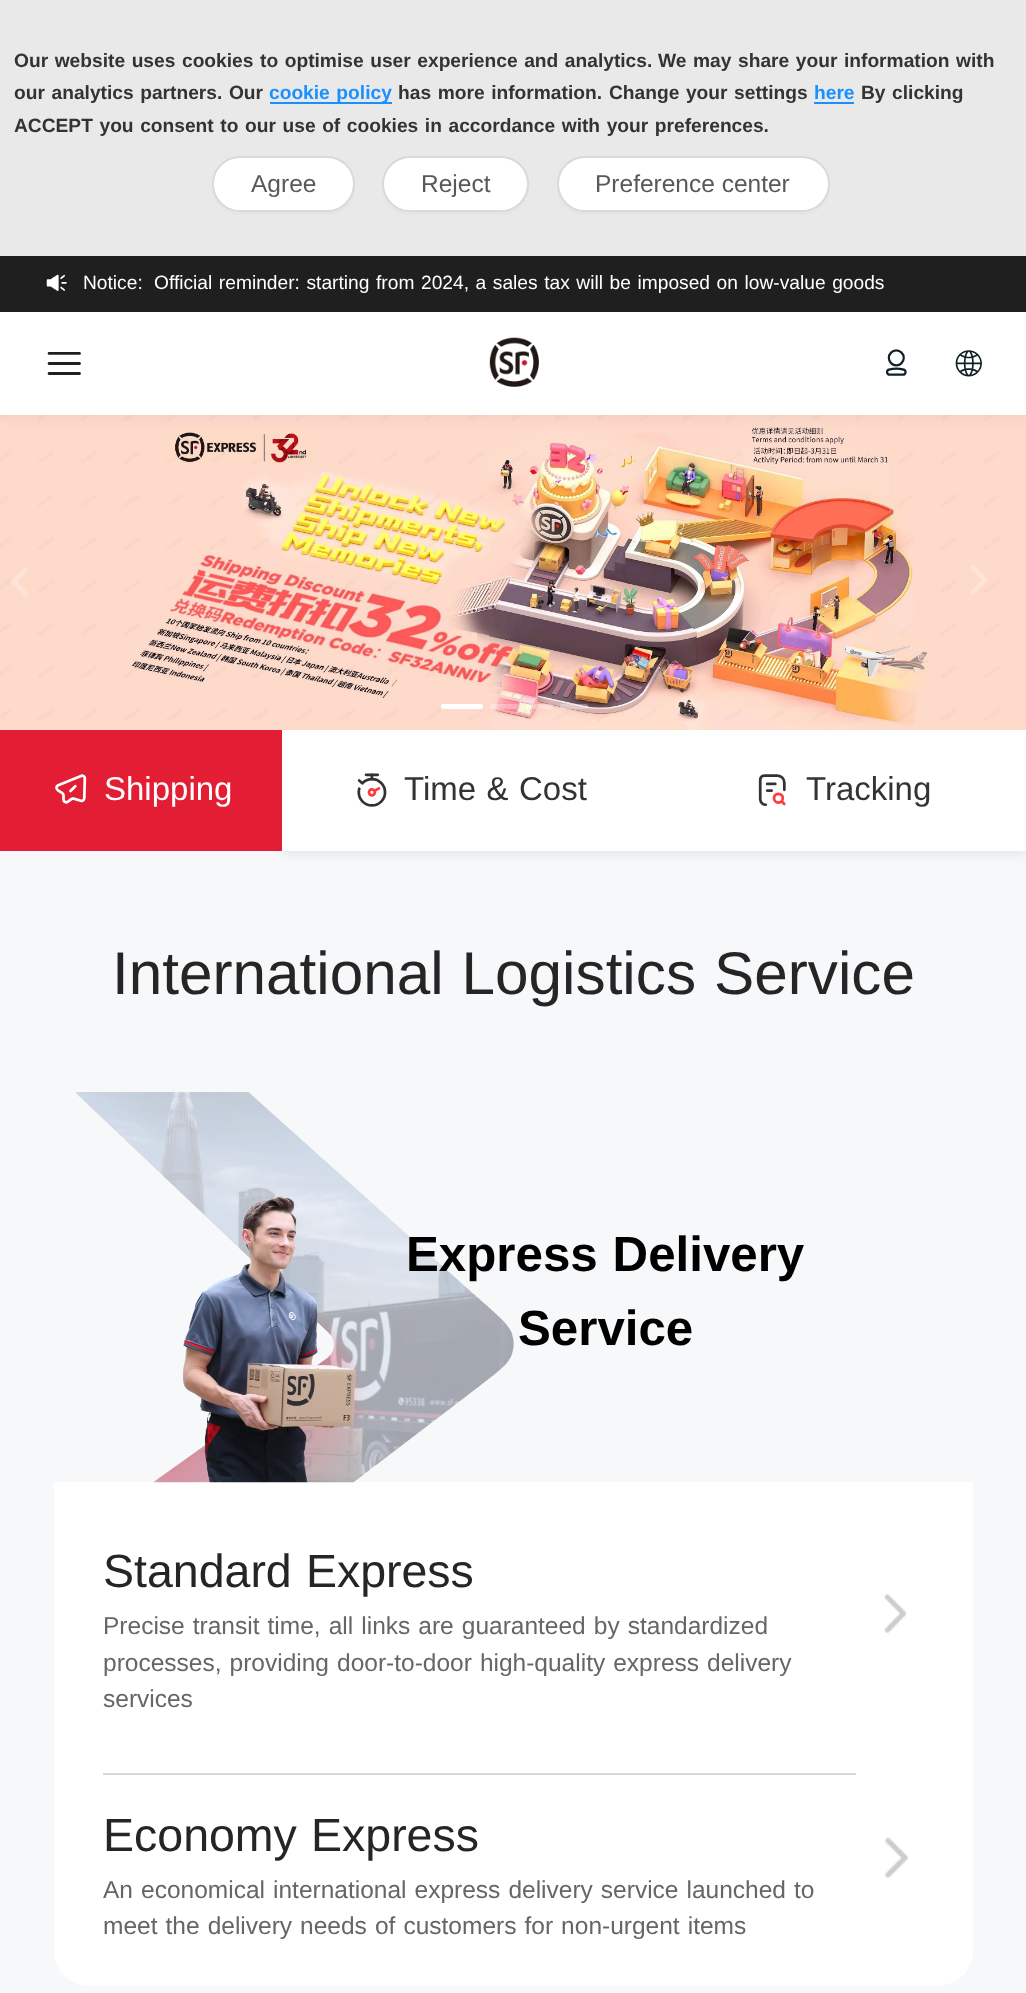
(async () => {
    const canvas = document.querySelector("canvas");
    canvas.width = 1026;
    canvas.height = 1993;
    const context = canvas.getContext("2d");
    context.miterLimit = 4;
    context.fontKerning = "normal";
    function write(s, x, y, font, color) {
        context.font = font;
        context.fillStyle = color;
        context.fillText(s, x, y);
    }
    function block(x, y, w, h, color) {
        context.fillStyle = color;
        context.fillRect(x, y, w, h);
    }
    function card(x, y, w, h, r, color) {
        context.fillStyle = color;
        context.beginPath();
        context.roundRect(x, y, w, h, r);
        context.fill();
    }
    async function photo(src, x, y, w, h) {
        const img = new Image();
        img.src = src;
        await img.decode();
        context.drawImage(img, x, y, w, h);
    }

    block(0, 0, 1026, 1993, "rgb(247, 248, 250)");
    block(0, 0, 1026, 256, "rgb(233, 233, 233)");
    context.wordSpacing = "1.25px";
    write("Our website uses cookies to optimise user experience and analytics.", 14, 67, "bold 19.2px Liberation Sans", "rgb(51, 51, 51)");
    write("We may share your information with", 658, 67, "bold 19.2px Liberation Sans", "rgb(51, 51, 51)");
    write("our analytics partners. Our", 14, 99, "bold 19.2px Liberation Sans", "rgb(51, 51, 51)");
    block(270, 102, 122, 2, "rgb(24, 144, 255)");
    write("cookie policy", 269, 99, "bold 19.2px Liberation Sans", "rgb(24, 144, 255)");
    write("has more information.", 398, 99, "bold 19.2px Liberation Sans", "rgb(51, 51, 51)");
    write("Change your settings", 609, 99, "bold 19.2px Liberation Sans", "rgb(51, 51, 51)");
    context.wordSpacing = "0px";
    write("here", 814, 99, "bold 19.2px Liberation Sans", "rgb(24, 144, 255)");
    block(814, 102, 40, 2, "rgb(24, 144, 255)");
    context.wordSpacing = "1.25px";
    write("By clicking", 861, 99, "bold 19.2px Liberation Sans", "rgb(51, 51, 51)");
    write("ACCEPT you consent to our use of cookies in accordance with your preferences.", 14, 132, "bold 19.2px Liberation Sans", "rgb(51, 51, 51)");
    context.fillStyle = "rgb(229, 229, 229)";
    context.beginPath();
    context.moveTo(212, 188);
    context.bezierCurveTo(212, 203, 225, 215, 240, 215);
    context.lineTo(327, 215);
    context.bezierCurveTo(342, 215, 355, 203, 355, 188);
    context.bezierCurveTo(353, 201, 341, 212, 327, 212);
    context.lineTo(240, 212);
    context.bezierCurveTo(226, 212, 214, 201, 212, 188);
    context.closePath();
    context.fill();
    context.fillStyle = "rgb(255, 255, 255)";
    context.beginPath();
    context.roundRect(213, 157, 141, 54, 27);
    context.fill();
    context.strokeStyle = "rgb(217, 217, 217)";
    context.lineWidth = 2;
    context.stroke();
    context.wordSpacing = "0px";
    write("Agree", 251, 192, "24.5px Liberation Sans", "rgb(89, 89, 89)");
    context.fillStyle = "rgb(229, 229, 229)";
    context.beginPath();
    context.moveTo(382, 190);
    context.bezierCurveTo(383, 204, 395, 215, 410, 215);
    context.lineTo(501, 215);
    context.bezierCurveTo(516, 215, 529, 202, 529, 187);
    context.lineTo(528, 181);
    context.lineTo(528, 184);
    context.bezierCurveTo(528, 199, 516, 212, 500, 212);
    context.lineTo(410, 212);
    context.bezierCurveTo(396, 212, 385, 202, 382, 190);
    context.closePath();
    context.fill();
    context.fillStyle = "rgb(255, 255, 255)";
    context.beginPath();
    context.roundRect(383, 157, 145, 54, 27);
    context.fill();
    context.stroke();
    write("Reject", 421, 192, "24.5px Liberation Sans", "rgb(89, 89, 89)");
    context.fillStyle = "rgb(229, 229, 229)";
    context.beginPath();
    context.moveTo(557, 190);
    context.bezierCurveTo(558, 204, 570, 215, 585, 215);
    context.lineTo(802, 215);
    context.bezierCurveTo(817, 215, 830, 202, 830, 187);
    context.lineTo(829, 181);
    context.lineTo(830, 184);
    context.bezierCurveTo(830, 199, 817, 212, 802, 212);
    context.lineTo(584, 212);
    context.bezierCurveTo(571, 212, 560, 202, 557, 190);
    context.closePath();
    context.fill();
    context.fillStyle = "rgb(255, 255, 255)";
    context.beginPath();
    context.roundRect(558, 157, 271, 54, 27);
    context.fill();
    context.stroke();
    write("Preference center", 595, 192, "24.5px Liberation Sans", "rgb(89, 89, 89)");
    block(0, 256, 1026, 56, "rgb(31, 31, 31)");
    await photo("media/1.png", 46, 274, 21, 17);
    write("Notice:", 83, 289, "19.2px Liberation Sans", "rgb(255, 255, 255)");
    context.wordSpacing = "1.25px";
    write("Official reminder: starting from 2024, a sales tax will be imposed on low-value goods", 154, 289, "19.2px Liberation Sans", "rgb(255, 255, 255)");
    block(282, 730, 744, 121, "rgb(255, 255, 255)");
    context.save();
    context.beginPath();
    context.moveTo(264, 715);
    context.lineTo(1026, 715);
    context.lineTo(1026, 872);
    context.lineTo(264, 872);
    context.closePath();
    context.moveTo(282, 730);
    context.lineTo(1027, 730);
    context.lineTo(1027, 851);
    context.lineTo(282, 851);
    context.closePath();
    context.clip("evenodd");
    context.fillStyle = "rgba(0, 0, 0, 0.08)";
    context.filter = "blur(5.5px)";
    context.beginPath();
    context.rect(282, 733, 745, 121);
    context.fill();
    context.filter = "none";
    context.restore();
    await photo("media/6.png", 0, 415, 1026, 315);
    context.fillStyle = "rgba(0, 0, 0, 0.05)";
    context.filter = "blur(7px)";
    context.beginPath();
    context.rect(0, 315, 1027, 103);
    context.fill();
    context.filter = "none";
    block(0, 312, 1026, 103, "rgb(255, 255, 255)");
    await photo("media/2.png", 47, 352, 34, 23);
    await photo("media/3.png", 489, 337, 50, 50);
    await photo("media/4.png", 886, 349, 21, 27);
    await photo("media/5.png", 955, 350, 27, 27);
    await photo("media/7.png", 11, 567, 17, 29);
    await photo("media/8.png", 970, 565, 18, 30);
    card(441, 704, 42, 5, 2, "rgb(255, 255, 255)");
    card(490, 704, 28, 5, 2, "rgba(255, 255, 255, 0.3)");
    card(525, 704, 28, 5, 2, "rgba(255, 255, 255, 0.3)");
    card(560, 704, 28, 5, 2, "rgba(255, 255, 255, 0.3)");
    block(0, 730, 282, 121, "rgb(227, 29, 51)");
    await photo("media/9.png", 55, 774, 32, 30);
    context.wordSpacing = "0px";
    write("Shipping", 104, 800, "33px Liberation Sans", "rgb(255, 255, 255)");
    await photo("media/10.png", 357, 773, 30, 34);
    context.wordSpacing = "1.25px";
    write("Time & Cost", 404, 800, "33px Liberation Sans", "rgb(51, 51, 51)");
    await photo("media/11.png", 758, 774, 28, 32);
    context.wordSpacing = "0px";
    write("Tracking", 806, 800, "33px Liberation Sans", "rgb(51, 51, 51)");
    context.wordSpacing = "1.25px";
    write("International Logistics Service", 112, 994, "60.25px Liberation Sans", "rgb(37, 37, 38)");
    block(54, 1482, 919, 263, "rgb(255, 255, 255)");
    await photo("media/12.png", 76, 1092, 438, 391);
    write("Express Delivery", 406, 1271, "bold 49.25px Liberation Sans", "rgb(0, 0, 0)");
    context.wordSpacing = "0px";
    write("Service", 518, 1345, "bold 49.25px Liberation Sans", "rgb(0, 0, 0)");
    context.wordSpacing = "1.25px";
    write("Standard Express", 103, 1587, "46.5px Liberation Sans", "rgb(37, 37, 38)");
    write("Precise transit time, all links are guaranteed by standardized", 103, 1634, "24.5px Liberation Sans", "rgb(102, 102, 102)");
    write("processes, providing door-to-door high-quality express delivery", 103, 1671, "24.5px Liberation Sans", "rgb(102, 102, 102)");
    context.wordSpacing = "0px";
    write("services", 103, 1707, "24.5px Liberation Sans", "rgb(102, 102, 102)");
    await photo("media/13.png", 884, 1594, 23, 39);
    context.fillStyle = "rgb(255, 255, 255)";
    context.beginPath();
    context.roundRect(54, 1745, 919, 241, [0, 0, 35, 35]);
    context.fill();
    block(103, 1773, 753, 2, "rgb(216, 216, 216)");
    context.wordSpacing = "1.25px";
    write("Economy Express", 103, 1851, "46.5px Liberation Sans", "rgb(37, 37, 38)");
    write("An economical international express delivery service launched to", 103, 1898, "24.5px Liberation Sans", "rgb(102, 102, 102)");
    write("meet the delivery needs of customers for non-urgent items", 103, 1934, "24.5px Liberation Sans", "rgb(102, 102, 102)");
    await photo("media/14.png", 885, 1837, 24, 41);
})();
